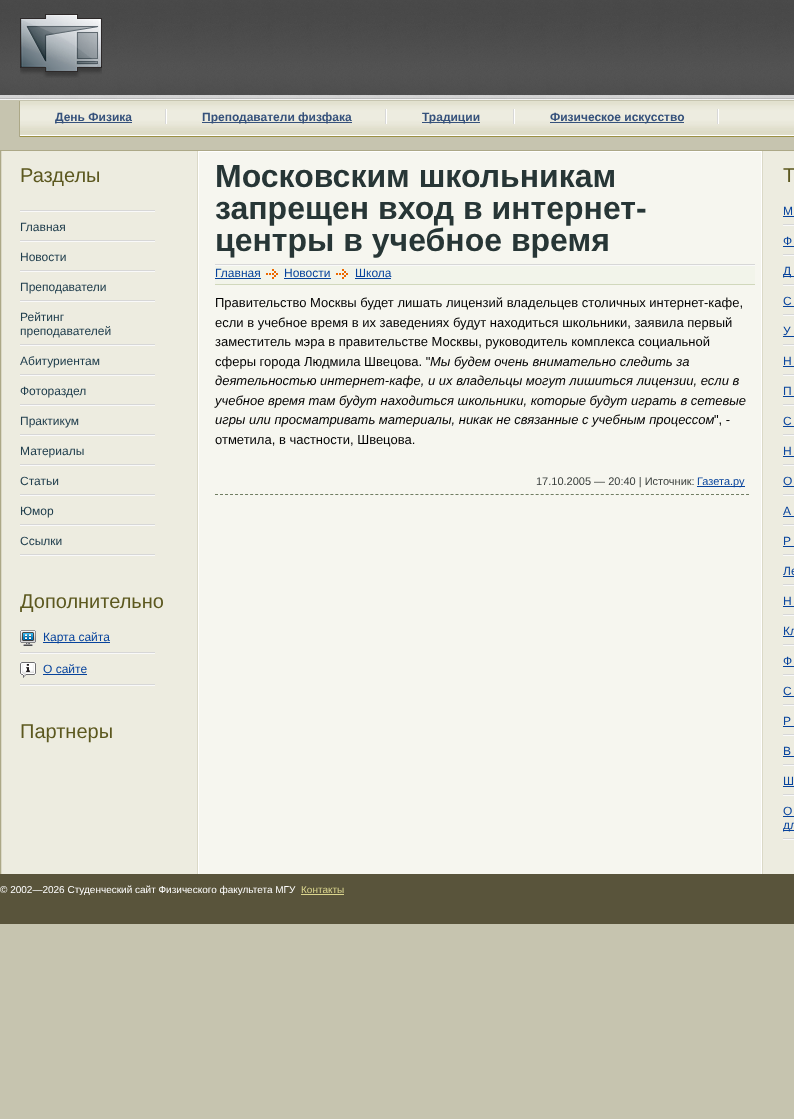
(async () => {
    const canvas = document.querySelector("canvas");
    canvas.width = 794;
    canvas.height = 1119;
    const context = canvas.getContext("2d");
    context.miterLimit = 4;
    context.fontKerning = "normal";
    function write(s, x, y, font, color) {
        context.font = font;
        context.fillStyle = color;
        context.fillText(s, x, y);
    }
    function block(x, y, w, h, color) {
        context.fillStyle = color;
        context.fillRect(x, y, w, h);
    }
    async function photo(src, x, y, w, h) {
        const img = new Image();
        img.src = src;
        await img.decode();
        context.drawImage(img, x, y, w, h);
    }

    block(0, 0, 794, 1119, "rgb(198, 196, 175)");
    await photo("media/1.png", 0, 0, 794, 100);
    await photo("media/2.png", 20, 14, 82, 64);
    await photo("media/3.png", 20, 101, 774, 36);
    block(19, 101, 1, 36, "rgb(172, 168, 135)");
    await photo("media/4.png", 165, 109, 2, 15);
    block(55, 122, 77, 1, "rgb(53, 81, 123)");
    write("День Физика", 55, 121, "bold 12px Liberation Sans", "rgb(53, 81, 123)");
    await photo("media/4.png", 385, 109, 2, 15);
    block(202, 122, 150, 1, "rgb(53, 81, 123)");
    write("Преподаватели физфака", 202, 121, "bold 12px Liberation Sans", "rgb(53, 81, 123)");
    await photo("media/4.png", 513, 109, 2, 15);
    block(422, 122, 58, 1, "rgb(53, 81, 123)");
    write("Традиции", 422, 121, "bold 12px Liberation Sans", "rgb(53, 81, 123)");
    await photo("media/4.png", 717, 109, 2, 15);
    block(550, 122, 134, 1, "rgb(53, 81, 123)");
    write("Физическое искусство", 550, 121, "bold 12px Liberation Sans", "rgb(53, 81, 123)");
    await photo("media/5.png", 0, 150, 794, 724);
    await photo("media/6.png", 1, 150, 793, 2);
    write("Разделы", 20, 182, "20px Liberation Sans", "rgb(92, 88, 31)");
    await photo("media/7.png", 20, 210, 135, 2);
    await photo("media/7.png", 20, 240, 135, 2);
    write("Главная", 20, 231, "12px Liberation Sans", "rgb(32, 62, 77)");
    await photo("media/7.png", 20, 270, 135, 2);
    write("Новости", 20, 261, "12px Liberation Sans", "rgb(32, 62, 77)");
    await photo("media/7.png", 20, 300, 135, 2);
    write("Преподаватели", 20, 291, "12px Liberation Sans", "rgb(32, 62, 77)");
    await photo("media/7.png", 20, 344, 135, 2);
    write("Рейтинг", 20, 321, "12px Liberation Sans", "rgb(32, 62, 77)");
    write("преподавателей", 20, 335, "12px Liberation Sans", "rgb(32, 62, 77)");
    await photo("media/7.png", 20, 374, 135, 2);
    write("Абитуриентам", 20, 365, "12px Liberation Sans", "rgb(32, 62, 77)");
    await photo("media/7.png", 20, 404, 135, 2);
    write("Фотораздел", 20, 395, "12px Liberation Sans", "rgb(32, 62, 77)");
    await photo("media/7.png", 20, 434, 135, 2);
    write("Практикум", 20, 425, "12px Liberation Sans", "rgb(32, 62, 77)");
    await photo("media/7.png", 20, 464, 135, 2);
    write("Материалы", 20, 455, "12px Liberation Sans", "rgb(32, 62, 77)");
    await photo("media/7.png", 20, 494, 135, 2);
    write("Статьи", 20, 485, "12px Liberation Sans", "rgb(32, 62, 77)");
    await photo("media/7.png", 20, 524, 135, 2);
    write("Юмор", 20, 515, "12px Liberation Sans", "rgb(32, 62, 77)");
    await photo("media/7.png", 20, 554, 135, 2);
    write("Ссылки", 20, 545, "12px Liberation Sans", "rgb(32, 62, 77)");
    write("Дополнительно", 20, 608, "20px Liberation Sans", "rgb(92, 88, 31)");
    await photo("media/7.png", 20, 652, 135, 2);
    await photo("media/8.png", 20, 630, 16, 16);
    block(43, 642, 67, 1, "rgb(7, 67, 156)");
    write("Карта сайта", 43, 641, "12px Liberation Sans", "rgb(7, 67, 156)");
    await photo("media/7.png", 20, 684, 135, 2);
    await photo("media/9.png", 20, 662, 16, 16);
    write("О сайте", 43, 673, "12px Liberation Sans", "rgb(7, 67, 156)");
    block(43, 674, 44, 1, "rgb(7, 67, 156)");
    write("Партнеры", 20, 738, "20px Liberation Sans", "rgb(92, 88, 31)");
    await photo("media/10.png", 215, 264, 540, 2);
    write("Московским школьникам", 215, 187, "bold 32px Liberation Sans", "rgb(39, 54, 54)");
    write("запрещен вход в интернет-", 215, 219, "bold 32px Liberation Sans", "rgb(39, 54, 54)");
    write("центры в учебное время", 215, 251, "bold 32px Liberation Sans", "rgb(39, 54, 54)");
    block(215, 266, 540, 18, "rgb(242, 244, 234)");
    block(215, 284, 540, 1, "rgb(209, 216, 188)");
    write("Главная", 215, 277, "12px Liberation Sans", "rgb(7, 67, 156)");
    block(215, 278, 46, 1, "rgb(7, 67, 156)");
    await photo("media/11.png", 266, 269, 12, 10);
    write("Новости", 284, 277, "12px Liberation Sans", "rgb(7, 67, 156)");
    block(284, 278, 47, 1, "rgb(7, 67, 156)");
    await photo("media/11.png", 336, 269, 12, 10);
    write("Школа", 355, 277, "12px Liberation Sans", "rgb(7, 67, 156)");
    block(355, 278, 36, 1, "rgb(7, 67, 156)");
    write("Правительство Москвы будет лишать лицензий владельцев столичных интернет-кафе,", 215, 307, "13px Liberation Sans", "rgb(0, 0, 0)");
    write("если в учебное время в их заведениях будут находиться школьники, заявила первый", 215, 327, "13px Liberation Sans", "rgb(0, 0, 0)");
    write("заместитель мэра в правительстве Москвы, руководитель комплекса социальной", 215, 346, "13px Liberation Sans", "rgb(0, 0, 0)");
    write("сферы города Людмила Швецова. \"", 215, 366, "13px Liberation Sans", "rgb(0, 0, 0)");
    write("Мы будем очень внимательно следить за", 430, 366, "italic 13px Liberation Sans", "rgb(0, 0, 0)");
    write("деятельностью интернет-кафе, и их владельцы могут лишиться лицензии, если в", 215, 385, "italic 13px Liberation Sans", "rgb(0, 0, 0)");
    write("учебное время там будут находиться школьники, которые будут играть в сетевые", 215, 405, "italic 13px Liberation Sans", "rgb(0, 0, 0)");
    write("игры или просматривать материалы, никак не связанные с учебным процессом", 215, 424, "italic 13px Liberation Sans", "rgb(0, 0, 0)");
    write("\", -", 714, 424, "13px Liberation Sans", "rgb(0, 0, 0)");
    write("отметила, в частности, Швецова.", 215, 444, "13px Liberation Sans", "rgb(0, 0, 0)");
    context.beginPath();
    context.moveTo(215, 494.5);
    context.lineTo(749, 494.5);
    context.strokeStyle = "rgb(112, 125, 98)";
    context.setLineDash([3, 2.01]);
    context.stroke();
    write("17.10.2005 — 20:40 | Источник:", 536, 485, "11px Liberation Sans", "rgb(57, 62, 60)");
    block(697, 486, 48, 1, "rgb(7, 67, 156)");
    write("Газета.ру", 697, 485, "11px Liberation Sans", "rgb(7, 67, 156)");
    write("Т", 783, 182, "20px Liberation Sans", "rgb(92, 88, 31)");
    await photo("media/12.png", 783, 224, 11, 2);
    write("М", 783, 215, "12px Liberation Sans", "rgb(7, 67, 156)");
    block(783, 216, 11, 1, "rgb(7, 67, 156)");
    await photo("media/12.png", 783, 254, 11, 2);
    write("Ф", 783, 245, "12px Liberation Sans", "rgb(7, 67, 156)");
    block(783, 246, 11, 1, "rgb(7, 67, 156)");
    await photo("media/12.png", 783, 284, 11, 2);
    block(783, 276, 11, 1, "rgb(7, 67, 156)");
    write("Д", 783, 275, "12px Liberation Sans", "rgb(7, 67, 156)");
    await photo("media/12.png", 783, 314, 11, 2);
    write("С", 783, 305, "12px Liberation Sans", "rgb(7, 67, 156)");
    block(783, 306, 11, 1, "rgb(7, 67, 156)");
    await photo("media/12.png", 783, 344, 11, 2);
    write("У", 783, 335, "12px Liberation Sans", "rgb(7, 67, 156)");
    block(783, 336, 11, 1, "rgb(7, 67, 156)");
    await photo("media/12.png", 783, 374, 11, 2);
    write("Н", 783, 365, "12px Liberation Sans", "rgb(7, 67, 156)");
    block(783, 366, 11, 1, "rgb(7, 67, 156)");
    await photo("media/12.png", 783, 404, 11, 2);
    write("П", 783, 395, "12px Liberation Sans", "rgb(7, 67, 156)");
    block(783, 396, 11, 1, "rgb(7, 67, 156)");
    await photo("media/12.png", 783, 434, 11, 2);
    write("С", 783, 425, "12px Liberation Sans", "rgb(7, 67, 156)");
    block(783, 426, 11, 1, "rgb(7, 67, 156)");
    await photo("media/12.png", 783, 464, 11, 2);
    write("Н", 783, 455, "12px Liberation Sans", "rgb(7, 67, 156)");
    block(783, 456, 11, 1, "rgb(7, 67, 156)");
    await photo("media/12.png", 783, 494, 11, 2);
    write("О", 783, 485, "12px Liberation Sans", "rgb(7, 67, 156)");
    block(783, 486, 11, 1, "rgb(7, 67, 156)");
    await photo("media/12.png", 783, 524, 11, 2);
    write("А", 783, 515, "12px Liberation Sans", "rgb(7, 67, 156)");
    block(783, 516, 11, 1, "rgb(7, 67, 156)");
    await photo("media/12.png", 783, 554, 11, 2);
    write("Р", 783, 545, "12px Liberation Sans", "rgb(7, 67, 156)");
    block(783, 546, 11, 1, "rgb(7, 67, 156)");
    await photo("media/12.png", 783, 584, 11, 2);
    write("Ле", 783, 575, "12px Liberation Sans", "rgb(7, 67, 156)");
    block(783, 576, 11, 1, "rgb(7, 67, 156)");
    await photo("media/12.png", 783, 614, 11, 2);
    write("Н", 783, 605, "12px Liberation Sans", "rgb(7, 67, 156)");
    block(783, 606, 11, 1, "rgb(7, 67, 156)");
    await photo("media/12.png", 783, 644, 11, 2);
    write("Кл", 783, 635, "12px Liberation Sans", "rgb(7, 67, 156)");
    block(783, 636, 11, 1, "rgb(7, 67, 156)");
    await photo("media/12.png", 783, 674, 11, 2);
    write("Ф", 783, 665, "12px Liberation Sans", "rgb(7, 67, 156)");
    block(783, 666, 11, 1, "rgb(7, 67, 156)");
    await photo("media/12.png", 783, 704, 11, 2);
    write("С", 783, 695, "12px Liberation Sans", "rgb(7, 67, 156)");
    block(783, 696, 11, 1, "rgb(7, 67, 156)");
    await photo("media/12.png", 783, 734, 11, 2);
    write("Р", 783, 725, "12px Liberation Sans", "rgb(7, 67, 156)");
    block(783, 726, 11, 1, "rgb(7, 67, 156)");
    await photo("media/12.png", 783, 764, 11, 2);
    write("В", 783, 755, "12px Liberation Sans", "rgb(7, 67, 156)");
    block(783, 756, 11, 1, "rgb(7, 67, 156)");
    await photo("media/12.png", 783, 794, 11, 2);
    write("Ш", 783, 785, "12px Liberation Sans", "rgb(7, 67, 156)");
    block(783, 786, 11, 1, "rgb(7, 67, 156)");
    await photo("media/12.png", 783, 838, 11, 2);
    write("О", 783, 815, "12px Liberation Sans", "rgb(7, 67, 156)");
    block(783, 816, 11, 1, "rgb(7, 67, 156)");
    block(783, 830, 11, 1, "rgb(7, 67, 156)");
    write("дл", 783, 829, "12px Liberation Sans", "rgb(7, 67, 156)");
    block(0, 874, 794, 50, "rgb(89, 84, 59)");
    write("© 2002—2026 Студенческий сайт Физического факультета МГУ", 0, 893, "10px Liberation Sans", "rgb(255, 255, 255)");
    write("Контакты", 301, 893, "10px Liberation Sans", "rgb(219, 214, 142)");
    block(301, 894, 43, 1, "rgb(219, 214, 142)");
})();
